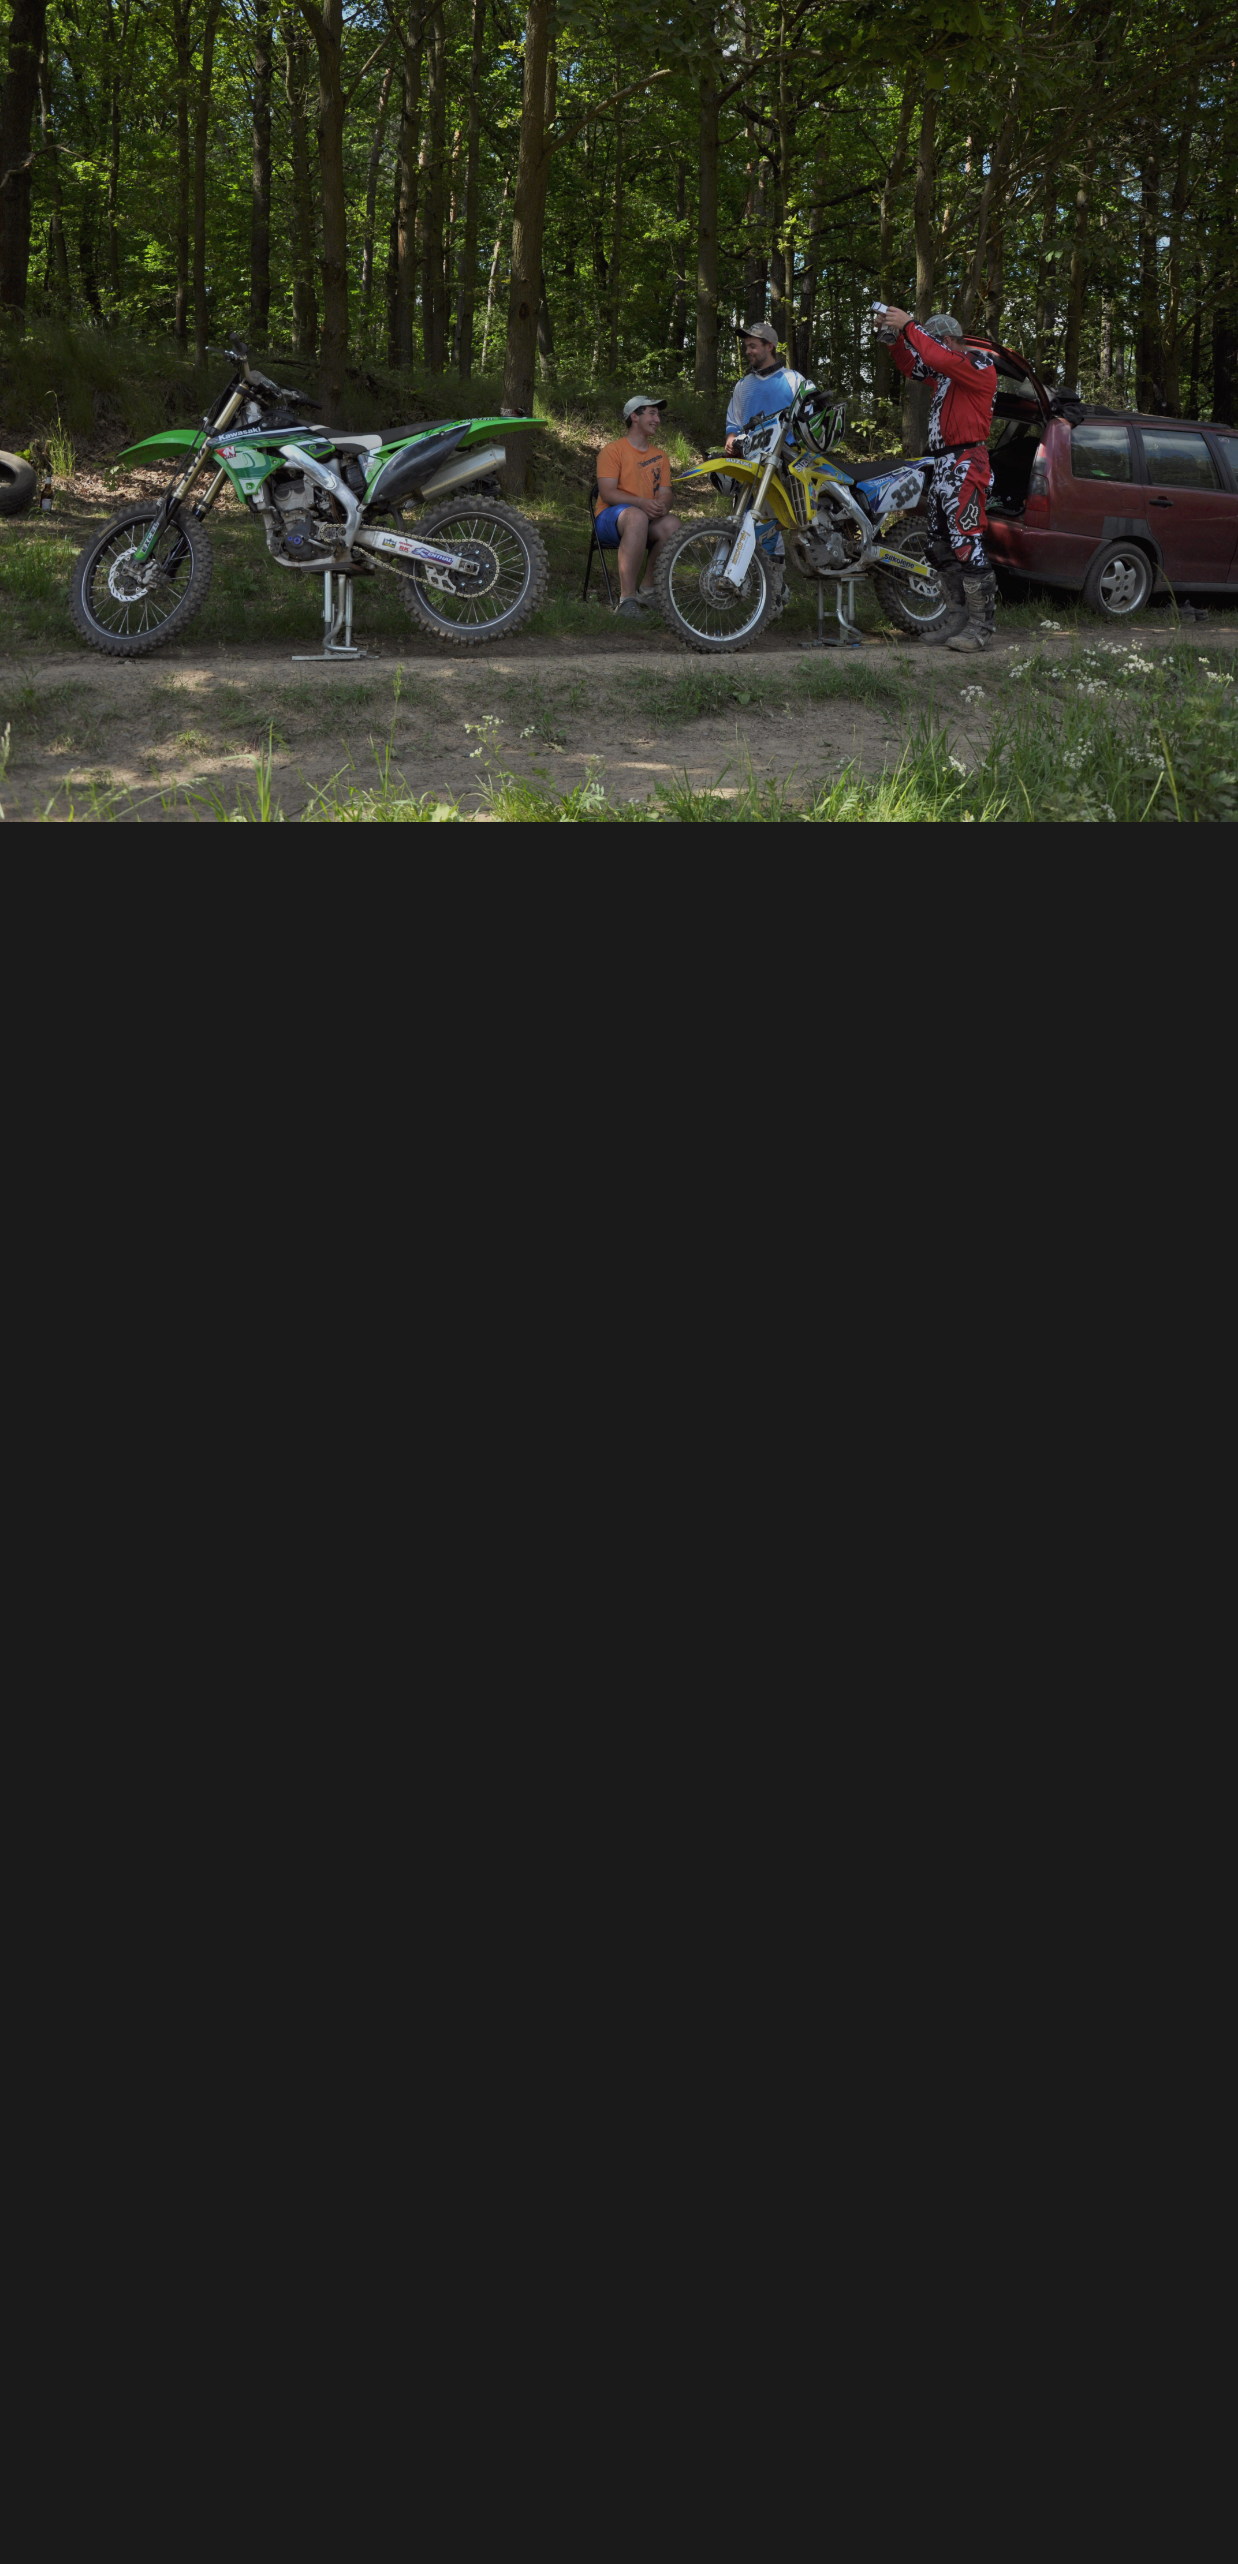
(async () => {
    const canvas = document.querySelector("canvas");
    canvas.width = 1238;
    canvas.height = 2564;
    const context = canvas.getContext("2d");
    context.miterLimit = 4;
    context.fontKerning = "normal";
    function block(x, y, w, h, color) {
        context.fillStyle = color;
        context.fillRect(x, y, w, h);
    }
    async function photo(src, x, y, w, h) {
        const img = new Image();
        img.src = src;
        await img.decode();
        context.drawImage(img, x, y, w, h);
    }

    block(0, 0, 1238, 2564, "rgb(26, 26, 26)");
    await photo("media/1.png", 0, 0, 1238, 822);
})();
